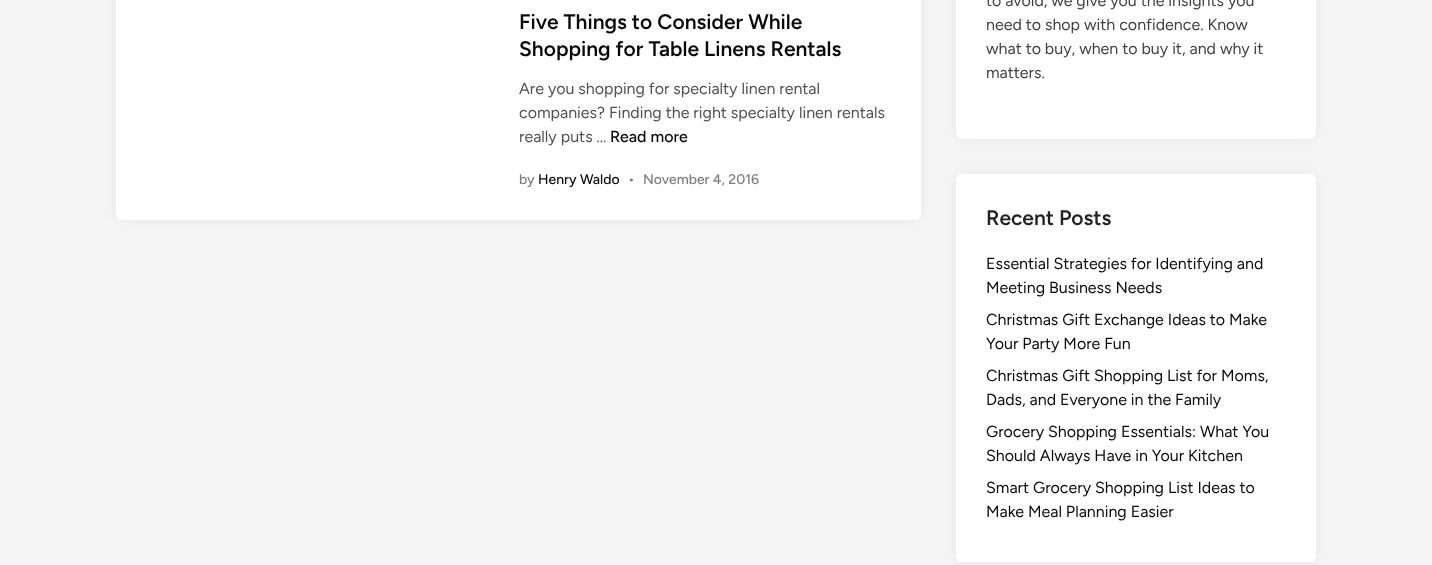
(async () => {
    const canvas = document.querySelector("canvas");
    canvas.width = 1432;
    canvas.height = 565;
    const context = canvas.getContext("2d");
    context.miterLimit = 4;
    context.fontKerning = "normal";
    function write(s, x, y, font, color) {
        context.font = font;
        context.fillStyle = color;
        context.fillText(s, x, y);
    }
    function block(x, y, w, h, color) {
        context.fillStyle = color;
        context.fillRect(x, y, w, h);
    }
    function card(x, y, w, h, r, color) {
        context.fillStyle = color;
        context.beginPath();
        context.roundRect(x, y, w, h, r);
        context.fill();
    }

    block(0, 0, 1432, 565, "rgb(245, 245, 245)");
    context.fillStyle = "rgba(0, 0, 0, 0.06)";
    context.filter = "blur(7.5px)";
    context.beginPath();
    context.roundRect(116, -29, 805, 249, 6);
    context.fill();
    context.filter = "none";
    card(116, -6, 805, 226, 6, "rgb(255, 255, 255)");
    write("Five Things to Consider While", 519, 29, "600 21px Figtree", "rgb(10, 8, 8)");
    write("Shopping for Table Linens Rentals", 519, 56, "600 21px Figtree", "rgb(10, 8, 8)");
    write("Are you shopping for specialty linen rental", 519, 94, "16px Figtree", "rgb(80, 80, 80)");
    write("companies? Finding the right specialty linen rentals", 519, 118, "16px Figtree", "rgb(80, 80, 80)");
    write("really puts …", 519, 142, "16px Figtree", "rgb(80, 80, 80)");
    write("Read more", 610, 142, "500 16px Figtree", "rgb(10, 8, 8)");
    write("by", 519, 184, "500 14px Figtree", "rgb(125, 125, 125)");
    write("Henry Waldo", 538, 184, "500 14px Figtree", "rgb(10, 8, 8)");
    write("•", 628, 184, "500 14px Figtree", "rgb(125, 125, 125)");
    write("November 4, 2016", 643, 184, "500 14px Figtree", "rgb(125, 125, 125)");
    context.fillStyle = "rgba(0, 0, 0, 0.06)";
    context.filter = "blur(7.5px)";
    context.beginPath();
    context.roundRect(956, -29, 360, 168, 6);
    context.fill();
    context.filter = "none";
    card(956, -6, 360, 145, 6, "rgb(255, 255, 255)");
    write("to avoid, we give you the insights you", 986, 6, "16px Figtree", "rgb(64, 64, 64)");
    write("need to shop with confidence. Know", 986, 30, "16px Figtree", "rgb(64, 64, 64)");
    write("what to buy, when to buy it, and why it", 986, 54, "16px Figtree", "rgb(64, 64, 64)");
    write("matters.", 986, 78, "16px Figtree", "rgb(64, 64, 64)");
    context.fillStyle = "rgba(0, 0, 0, 0.06)";
    context.filter = "blur(7.5px)";
    context.beginPath();
    context.roundRect(956, 174, 360, 388, 6);
    context.fill();
    context.filter = "none";
    card(956, 174, 360, 388, 6, "rgb(255, 255, 255)");
    write("Recent Posts", 986, 225, "600 21px Figtree", "rgb(34, 34, 34)");
    write("Essential Strategies for Identifying and", 986, 269, "16px Figtree", "rgb(10, 8, 8)");
    write("Meeting Business Needs", 986, 293, "16px Figtree", "rgb(10, 8, 8)");
    write("Christmas Gift Exchange Ideas to Make", 986, 325, "16px Figtree", "rgb(10, 8, 8)");
    write("Your Party More Fun", 986, 349, "16px Figtree", "rgb(10, 8, 8)");
    write("Christmas Gift Shopping List for Moms,", 986, 381, "16px Figtree", "rgb(10, 8, 8)");
    write("Dads, and Everyone in the Family", 986, 405, "16px Figtree", "rgb(10, 8, 8)");
    write("Grocery Shopping Essentials: What You", 986, 437, "16px Figtree", "rgb(10, 8, 8)");
    write("Should Always Have in Your Kitchen", 986, 461, "16px Figtree", "rgb(10, 8, 8)");
    write("Smart Grocery Shopping List Ideas to", 986, 493, "16px Figtree", "rgb(10, 8, 8)");
    write("Make Meal Planning Easier", 986, 517, "16px Figtree", "rgb(10, 8, 8)");
})();
